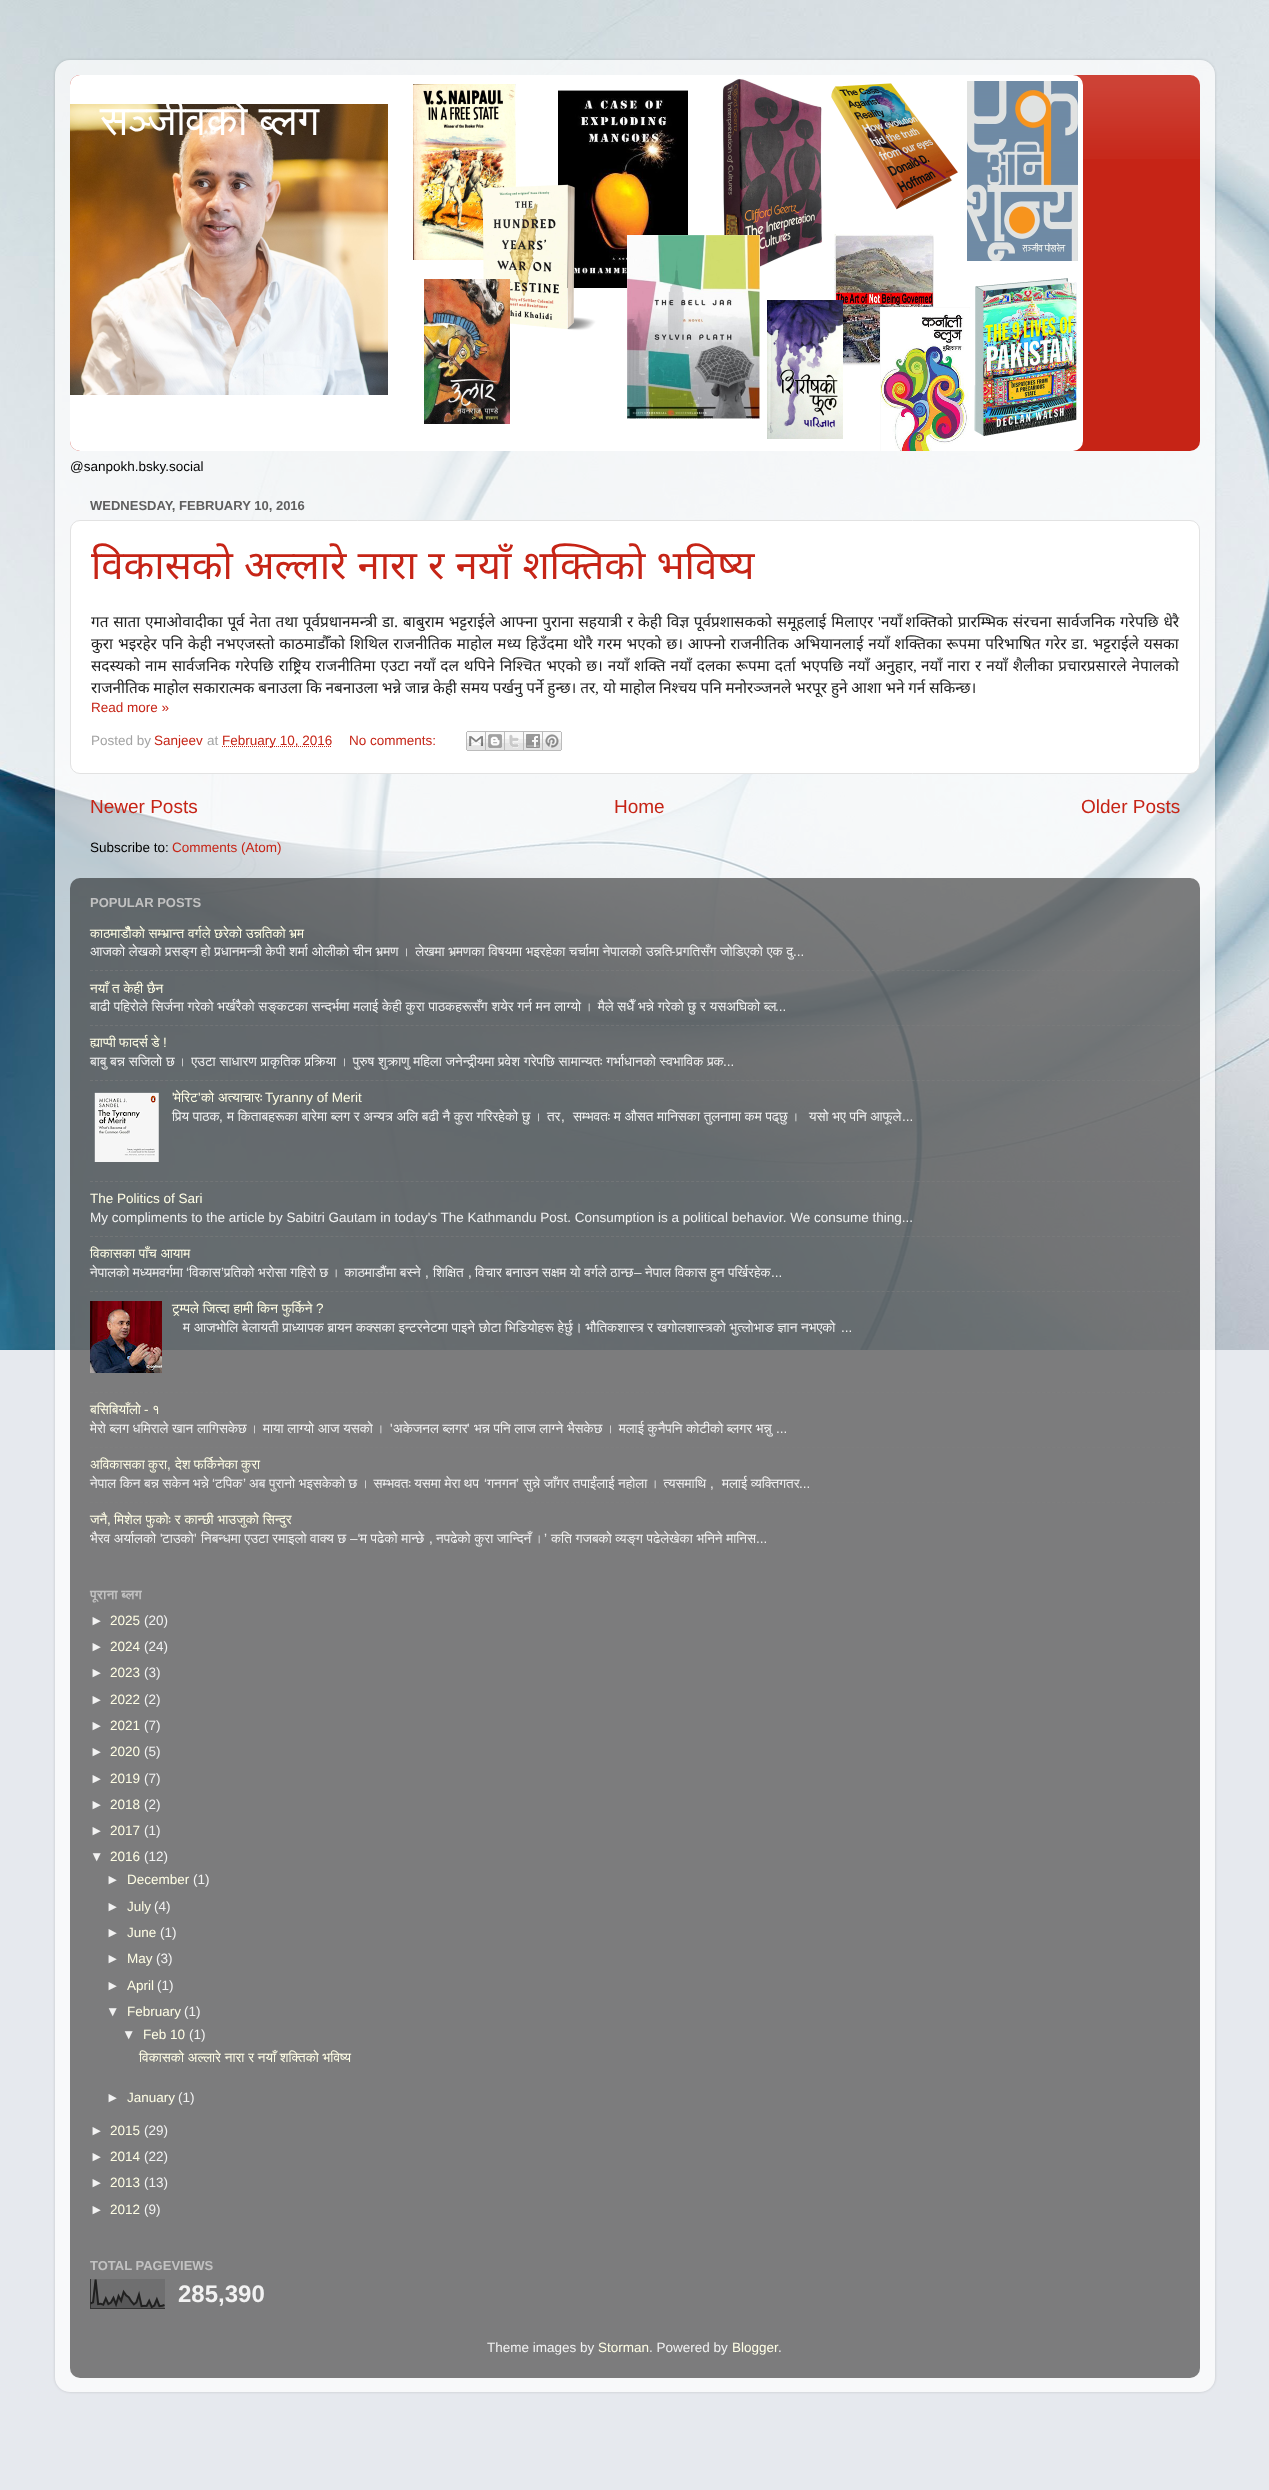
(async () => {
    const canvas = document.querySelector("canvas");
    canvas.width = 1269;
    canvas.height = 2490;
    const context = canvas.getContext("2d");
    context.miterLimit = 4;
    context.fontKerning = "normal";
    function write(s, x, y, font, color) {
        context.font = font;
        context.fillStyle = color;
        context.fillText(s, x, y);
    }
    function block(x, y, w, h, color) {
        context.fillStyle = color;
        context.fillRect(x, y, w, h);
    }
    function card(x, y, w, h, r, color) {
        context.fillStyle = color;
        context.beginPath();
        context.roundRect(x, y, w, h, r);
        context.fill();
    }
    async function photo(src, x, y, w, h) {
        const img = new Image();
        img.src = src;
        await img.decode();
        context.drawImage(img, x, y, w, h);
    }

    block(0, 0, 1269, 2490, "rgb(230, 233, 238)");
    await photo("media/1.png", 0, 0, 1269, 1350);
    context.save();
    context.beginPath();
    context.moveTo(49, 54);
    context.lineTo(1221, 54);
    context.lineTo(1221, 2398);
    context.lineTo(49, 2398);
    context.closePath();
    context.moveTo(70, 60);
    context.lineTo(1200, 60);
    context.bezierCurveTo(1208.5, 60, 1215, 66.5, 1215, 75);
    context.lineTo(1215, 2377);
    context.bezierCurveTo(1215, 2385.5, 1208.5, 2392, 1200, 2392);
    context.lineTo(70, 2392);
    context.bezierCurveTo(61.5, 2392, 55, 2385.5, 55, 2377);
    context.lineTo(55, 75);
    context.bezierCurveTo(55, 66.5, 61.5, 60, 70, 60);
    context.closePath();
    context.clip("evenodd");
    context.fillStyle = "rgba(0, 0, 0, 0.15)";
    context.filter = "blur(1.5px)";
    context.beginPath();
    context.roundRect(55, 60, 1160, 2332, 15);
    context.fill();
    context.filter = "none";
    context.restore();
    await photo("media/2.png", 55, 60, 1160, 2332);
    card(70, 75, 1130, 376, 10, "rgb(198, 36, 22)");
    await photo("media/3.png", 70, 75, 1130, 84);
    await photo("media/4.png", 70, 75, 1013, 376);
    context.wordSpacing = "1px";
    write("सञ्जीवको ब्लग", 100, 135, "42px FreeSans", "rgb(255, 255, 255)");
    context.wordSpacing = "0px";
    write("@sanpokh.bsky.social", 70, 471, "13.5px Liberation Sans", "rgb(0, 0, 0)");
    write("WEDNESDAY, FEBRUARY 10, 2016", 90, 510, "bold 13px Liberation Sans", "rgb(95, 95, 95)");
    context.fillStyle = "rgb(255, 255, 255)";
    context.beginPath();
    context.roundRect(70.5, 520.5, 1129, 253, 9.5);
    context.fill();
    context.strokeStyle = "rgb(226, 226, 226)";
    context.stroke();
    context.wordSpacing = "0.75px";
    write("विकासको अल्लारे नारा र नयाँ शक्तिको भविष्य", 91, 579, "40px Noto Sans", "rgb(198, 36, 22)");
    context.wordSpacing = "0.8px";
    write("गत साता एमाओवादीका पूर्व नेता तथा पूर्वप्रधानमन्त्री डा. बाबुराम भट्टराईले आफ्ना पुराना सहयात्री र केही विज्ञ पूर्वप्रशासकको समूहलाई मिलाएर", 91, 627, "15.33px Noto Sans", "rgb(34, 34, 34)");
    context.wordSpacing = "0px";
    write("'", 878, 627, "15.33px Liberation Serif", "rgb(34, 34, 34)");
    context.wordSpacing = "-1px";
    write("नयाँ शक्ति", 881, 627, "15.33px Noto Sans", "rgb(34, 34, 34)");
    context.wordSpacing = "0px";
    write("'", 934, 627, "15.33px Liberation Serif", "rgb(34, 34, 34)");
    context.wordSpacing = "1px";
    write("को प्रारम्भिक संरचना सार्वजनिक गरेपछि धेरै", 937, 627, "15.33px Noto Sans", "rgb(34, 34, 34)");
    context.wordSpacing = "0.9px";
    write("कुरा भइरहेर पनि केही नभएजस्तो काठमाडौँको शिथिल राजनीतिक माहोल मध्य हिउँदमा थोरै गरम भएको छ। आफ्नो राजनीतिक अभियानलाई नयाँ शक्तिका रूपमा परिभाषित गरेर डा. भट्टराईले यसका", 91, 649, "15.33px Noto Sans", "rgb(34, 34, 34)");
    context.wordSpacing = "1px";
    write("सदस्यको नाम सार्वजनिक गरेपछि राष्ट्रिय राजनीतिमा एउटा नयाँ दल थपिने निश्चित भएको छ। नयाँ शक्ति नयाँ दलका रूपमा दर्ता भएपछि नयाँ अनुहार", 91, 671, "15.33px Noto Sans", "rgb(34, 34, 34)");
    context.wordSpacing = "0px";
    write(",", 913, 671, "15.33px Liberation Serif", "rgb(34, 34, 34)");
    context.wordSpacing = "1px";
    write("नयाँ नारा र नयाँ शैलीका प्रचारप्रसारले नेपालको", 921, 671, "15.33px Noto Sans", "rgb(34, 34, 34)");
    context.wordSpacing = "-0.2px";
    write("राजनीतिक माहोल सकारात्मक बनाउला कि नबनाउला भन्ने जान्न केही समय पर्खनु पर्ने हुन्छ। तर", 91, 693, "15.33px Noto Sans", "rgb(34, 34, 34)");
    context.wordSpacing = "0px";
    write(",", 595, 693, "15.33px Liberation Serif", "rgb(34, 34, 34)");
    context.wordSpacing = "-0.2px";
    write("यो माहोल निश्चय पनि मनोरञ्जनले भरपूर हुने आशा भने गर्न सकिन्छ।", 603, 693, "15.33px Noto Sans", "rgb(34, 34, 34)");
    context.wordSpacing = "0px";
    write("Read more »", 91, 712, "13.5px Liberation Sans", "rgb(198, 36, 22)");
    write("Posted by", 91, 745, "13.5px Liberation Sans", "rgb(163, 163, 163)");
    write("Sanjeev", 154, 745, "13.5px Liberation Sans", "rgb(198, 36, 22)");
    write("at", 207, 745, "13.5px Liberation Sans", "rgb(163, 163, 163)");
    context.beginPath();
    context.moveTo(222, 746.5);
    context.lineTo(332, 746.5);
    context.strokeStyle = "rgb(198, 36, 22)";
    context.setLineDash([1, 1]);
    context.stroke();
    write("February 10, 2016", 222, 745, "13.5px Liberation Sans", "rgb(198, 36, 22)");
    write("No comments:", 349, 745, "13.5px Liberation Sans", "rgb(198, 36, 22)");
    await photo("media/5.png", 466, 731, 20, 20);
    await photo("media/6.png", 486, 731, 19, 20);
    await photo("media/7.png", 505, 731, 19, 20);
    await photo("media/8.png", 524, 731, 19, 20);
    await photo("media/9.png", 543, 731, 19, 20);
    write("Newer Posts", 90, 813, "19px Liberation Sans", "rgb(198, 36, 22)");
    write("Home", 614, 813, "19px Liberation Sans", "rgb(198, 36, 22)");
    write("Older Posts", 1081, 813, "19px Liberation Sans", "rgb(198, 36, 22)");
    write("Subscribe to:", 90, 852, "13.5px Liberation Sans", "rgb(0, 0, 0)");
    write("Comments (Atom)", 172, 852, "13.5px Liberation Sans", "rgb(198, 36, 22)");
    await photo("media/10.png", 70, 878, 1130, 1500);
    write("POPULAR POSTS", 90, 907, "bold 13px Liberation Sans", "rgb(194, 194, 194)");
    context.wordSpacing = "0.4px";
    write("काठमाडौँको सम्भ्रान्त वर्गले छरेको उन्नतिको भ्रम", 90, 938, "13.5px FreeSans", "rgb(255, 254, 229)");
    write("आजको लेखको प्रसङ्ग हो प्रधानमन्त्री केपी शर्मा ओलीको चीन भ्रमण । लेखमा भ्रमणका विषयमा भइरहेका चर्चामा नेपालको उन्नति", 90, 956, "13.5px FreeSans", "rgb(242, 242, 242)");
    context.wordSpacing = "0px";
    write("-", 671, 956, "13.5px Liberation Sans", "rgb(242, 242, 242)");
    context.wordSpacing = "0.4px";
    write("प्रगतिसँग जोडिएको एक दु", 676, 956, "13.5px FreeSans", "rgb(242, 242, 242)");
    context.wordSpacing = "0px";
    write("...", 793, 956, "13.5px Liberation Sans", "rgb(242, 242, 242)");
    context.beginPath();
    context.moveTo(90, 970.5);
    context.lineTo(1180, 970.5);
    context.strokeStyle = "rgba(128, 128, 128, 0.5)";
    context.setLineDash([3, 2.01]);
    context.stroke();
    context.wordSpacing = "0.4px";
    write("नयाँ त केही छैन", 90, 993, "13.5px FreeSans", "rgb(255, 254, 229)");
    write("बाढी पहिरोले सिर्जना गरेको भर्खरैको सङ्कटका सन्दर्भमा मलाई केही कुरा पाठकहरूसँग शयेर गर्न मन लाग्यो । मैले सधैँ भन्ने गरेको छु र यसअघिको ब्ल", 90, 1011, "13.5px FreeSans", "rgb(242, 242, 242)");
    context.wordSpacing = "0px";
    write("...", 775, 1011, "13.5px Liberation Sans", "rgb(242, 242, 242)");
    context.beginPath();
    context.moveTo(90, 1025.5);
    context.lineTo(1180, 1025.5);
    context.stroke();
    write("ह्याप्पी फादर्स डे", 90, 1047, "13.5px FreeSans", "rgb(255, 254, 229)");
    write("!", 163, 1047, "13.5px Liberation Sans", "rgb(255, 254, 229)");
    context.wordSpacing = "0.4px";
    write("बाबु बन्न सजिलो छ । एउटा साधारण प्राकृतिक प्रक्रिया । पुरुष शुक्राणु महिला जनेन्द्रीयमा प्रवेश गरेपछि सामान्यतः गर्भाधानको स्वभाविक प्रक", 90, 1066, "13.5px FreeSans", "rgb(242, 242, 242)");
    context.wordSpacing = "0px";
    write("...", 723, 1066, "13.5px Liberation Sans", "rgb(242, 242, 242)");
    context.beginPath();
    context.moveTo(90, 1080.5);
    context.lineTo(1180, 1080.5);
    context.stroke();
    await photo("media/11.png", 94, 1092, 65, 70);
    write("'", 172, 1102, "13.5px Liberation Sans", "rgb(255, 254, 229)");
    write("मेरिट", 174, 1102, "13.5px FreeSans", "rgb(255, 254, 229)");
    write("'", 198, 1102, "13.5px Liberation Sans", "rgb(255, 254, 229)");
    write("को", 201, 1102, "13.5px FreeSans", "rgb(255, 254, 229)");
    write("अत्याचारः", 218, 1102, "13.5px FreeSans", "rgb(255, 254, 229)");
    write("Tyranny of Merit", 265, 1102, "13.5px Liberation Sans", "rgb(255, 254, 229)");
    context.wordSpacing = "0.3px";
    write("प्रिय पाठक", 172, 1121, "13.5px FreeSans", "rgb(242, 242, 242)");
    context.wordSpacing = "0px";
    write(",", 219, 1121, "13.5px Liberation Sans", "rgb(242, 242, 242)");
    context.wordSpacing = "0.3px";
    write("म किताबहरूका बारेमा ब्लग र अन्यत्र अलि बढी नै कुरा गरिरहेको छु । तर", 227, 1121, "13.5px FreeSans", "rgb(242, 242, 242)");
    context.wordSpacing = "0px";
    write(",", 561, 1121, "13.5px Liberation Sans", "rgb(242, 242, 242)");
    context.wordSpacing = "0.3px";
    write("सम्भवतः म औसत मानिसका तुलनामा कम पढ्छु ।", 573, 1121, "13.5px FreeSans", "rgb(242, 242, 242)");
    write("यसो भए पनि आफूले", 809, 1121, "13.5px FreeSans", "rgb(242, 242, 242)");
    context.wordSpacing = "0px";
    write("...", 902, 1121, "13.5px Liberation Sans", "rgb(242, 242, 242)");
    context.beginPath();
    context.moveTo(90, 1181.5);
    context.lineTo(1180, 1181.5);
    context.stroke();
    write("The Politics of Sari", 90, 1203, "13.5px Liberation Sans", "rgb(255, 254, 229)");
    write("My compliments to the article by Sabitri Gautam in today's The Kathmandu Post. Consumption is a political behavior. We consume thing...", 90, 1222, "13.5px Liberation Sans", "rgb(242, 242, 242)");
    context.beginPath();
    context.moveTo(90, 1236.5);
    context.lineTo(1180, 1236.5);
    context.stroke();
    context.wordSpacing = "0.4px";
    write("विकासका पाँच आयाम", 90, 1258, "13.5px FreeSans", "rgb(255, 254, 229)");
    context.wordSpacing = "0.25px";
    write("नेपालको मध्यमवर्गमा", 90, 1277, "13.5px FreeSans", "rgb(242, 242, 242)");
    context.wordSpacing = "0px";
    write("‘", 186, 1277, "13.5px Liberation Sans", "rgb(242, 242, 242)");
    write("विकास", 189, 1277, "13.5px FreeSans", "rgb(242, 242, 242)");
    write("’", 221, 1277, "13.5px Liberation Sans", "rgb(242, 242, 242)");
    context.wordSpacing = "0.25px";
    write("प्रतिको भरोसा गहिरो छ । काठमाडौंमा बस्ने", 224, 1277, "13.5px FreeSans", "rgb(242, 242, 242)");
    context.wordSpacing = "0px";
    write("शिक्षित", 433, 1277, "13.5px FreeSans", "rgb(242, 242, 242)");
    context.wordSpacing = "0.25px";
    write("विचार बनाउन सक्षम यो वर्गले ठान्छ", 475, 1277, "13.5px FreeSans", "rgb(242, 242, 242)");
    context.wordSpacing = "0px";
    write("–", 634, 1277, "13.5px Liberation Sans", "rgb(242, 242, 242)");
    context.wordSpacing = "0.25px";
    write("नेपाल विकास हुन पर्खिरहेक", 645, 1277, "13.5px FreeSans", "rgb(242, 242, 242)");
    context.wordSpacing = "0px";
    write(",", 425, 1277, "13.5px Liberation Sans", "rgb(242, 242, 242)");
    write(",", 468, 1277, "13.5px Liberation Sans", "rgb(242, 242, 242)");
    write("...", 771, 1277, "13.5px Liberation Sans", "rgb(242, 242, 242)");
    context.beginPath();
    context.moveTo(90, 1291.5);
    context.lineTo(1180, 1291.5);
    context.stroke();
    await photo("media/12.png", 90, 1301, 72, 72);
    context.wordSpacing = "0.5px";
    write("ट्रम्पले जित्दा हामी किन फुर्किने", 172, 1313, "13.5px FreeSans", "rgb(255, 254, 229)");
    context.wordSpacing = "0px";
    write("?", 316, 1313, "13.5px Liberation Sans", "rgb(255, 254, 229)");
    context.wordSpacing = "0.3px";
    write("म आजभोलि बेलायती प्राध्यापक ब्रायन कक्सका इन्टरनेटमा पाइने छोटा भिडियोहरू हेर्छु। भौतिकशास्त्र र खगोलशास्त्रको भुत्लोभाङ ज्ञान नभएको", 183, 1332, "13.5px FreeSans", "rgb(242, 242, 242)");
    context.wordSpacing = "0px";
    write("...", 841, 1332, "13.5px Liberation Sans", "rgb(242, 242, 242)");
    context.beginPath();
    context.moveTo(90, 1392.5);
    context.lineTo(1180, 1392.5);
    context.strokeStyle = "rgb(126, 126, 126)";
    context.stroke();
    write("बसिबियाँलो", 90, 1414, "13.5px FreeSans", "rgb(255, 254, 229)");
    write("-", 144, 1414, "13.5px Liberation Sans", "rgb(255, 254, 229)");
    write("१", 152, 1414, "13.5px FreeSans", "rgb(255, 254, 229)");
    context.wordSpacing = "0.25px";
    write("मेरो ब्लग धमिराले खान लागिसकेछ । माया लाग्यो आज यसको ।", 90, 1433, "13.5px FreeSans", "rgb(242, 242, 242)");
    context.wordSpacing = "0px";
    write("'", 390, 1433, "13.5px Liberation Sans", "rgb(242, 242, 242)");
    context.wordSpacing = "0.25px";
    write("अकेजनल ब्लगर", 393, 1433, "13.5px FreeSans", "rgb(242, 242, 242)");
    context.wordSpacing = "0px";
    write("'", 467, 1433, "13.5px Liberation Sans", "rgb(242, 242, 242)");
    context.wordSpacing = "0.25px";
    write("भन्न पनि लाज लाग्ने भैसकेछ । मलाई कुनैपनि कोटीको ब्लगर भन्नु", 474, 1433, "13.5px FreeSans", "rgb(242, 242, 242)");
    context.wordSpacing = "0px";
    write("...", 776, 1433, "13.5px Liberation Sans", "rgb(242, 242, 242)");
    context.beginPath();
    context.moveTo(90, 1447.5);
    context.lineTo(1180, 1447.5);
    context.stroke();
    write("अविकासका कुरा", 90, 1469, "13.5px FreeSans", "rgb(255, 254, 229)");
    write(",", 167, 1469, "13.5px Liberation Sans", "rgb(255, 254, 229)");
    write("देश फर्किनेका कुरा", 175, 1469, "13.5px FreeSans", "rgb(255, 254, 229)");
    context.wordSpacing = "0.25px";
    write("नेपाल किन बन्न सकेन भन्ने", 90, 1488, "13.5px FreeSans", "rgb(242, 242, 242)");
    context.wordSpacing = "0px";
    write("‘", 212, 1488, "13.5px Liberation Sans", "rgb(242, 242, 242)");
    write("टपिक", 215, 1488, "13.5px FreeSans", "rgb(242, 242, 242)");
    write("’", 243, 1488, "13.5px Liberation Sans", "rgb(242, 242, 242)");
    context.wordSpacing = "0.25px";
    write("अब पुरानो भइसकेको छ । सम्भवतः यसमा मेरा थप", 249, 1488, "13.5px FreeSans", "rgb(242, 242, 242)");
    context.wordSpacing = "0px";
    write("‘", 484, 1488, "13.5px Liberation Sans", "rgb(242, 242, 242)");
    write("गनगन", 487, 1488, "13.5px FreeSans", "rgb(242, 242, 242)");
    write("’", 516, 1488, "13.5px Liberation Sans", "rgb(242, 242, 242)");
    context.wordSpacing = "0.25px";
    write("सुन्ने जाँगर तपाईंलाई नहोला । त्यसमाथि", 523, 1488, "13.5px FreeSans", "rgb(242, 242, 242)");
    write("मलाई व्यक्तिगतर", 722, 1488, "13.5px FreeSans", "rgb(242, 242, 242)");
    context.wordSpacing = "0px";
    write(",", 710, 1488, "13.5px Liberation Sans", "rgb(242, 242, 242)");
    write("...", 799, 1488, "13.5px Liberation Sans", "rgb(242, 242, 242)");
    context.beginPath();
    context.moveTo(90, 1502.5);
    context.lineTo(1180, 1502.5);
    context.stroke();
    write("जनै", 90, 1524, "13.5px FreeSans", "rgb(255, 254, 229)");
    write(",", 107, 1524, "13.5px Liberation Sans", "rgb(255, 254, 229)");
    context.wordSpacing = "0.5px";
    write("मिशेल फुकोः र कान्छी भाउजुको सिन्दुर", 114, 1524, "13.5px FreeSans", "rgb(255, 254, 229)");
    context.wordSpacing = "0.25px";
    write("भैरव अर्यालको", 90, 1543, "13.5px FreeSans", "rgb(242, 242, 242)");
    context.wordSpacing = "0px";
    write("'", 160, 1543, "13.5px Liberation Sans", "rgb(242, 242, 242)");
    write("टाउको", 162, 1543, "13.5px FreeSans", "rgb(242, 242, 242)");
    write("'", 194, 1543, "13.5px Liberation Sans", "rgb(242, 242, 242)");
    context.wordSpacing = "0.25px";
    write("निबन्धमा एउटा रमाइलो वाक्य छ", 201, 1543, "13.5px FreeSans", "rgb(242, 242, 242)");
    context.wordSpacing = "0px";
    write("–‘", 350, 1543, "13.5px Liberation Sans", "rgb(242, 242, 242)");
    context.wordSpacing = "0.25px";
    write("म पढेको मान्छे", 360, 1543, "13.5px FreeSans", "rgb(242, 242, 242)");
    write("नपढेको कुरा जान्दिनँ ।", 436, 1543, "13.5px FreeSans", "rgb(242, 242, 242)");
    context.wordSpacing = "0px";
    write("’", 544, 1543, "13.5px Liberation Sans", "rgb(242, 242, 242)");
    context.wordSpacing = "0.25px";
    write("कति गजबको व्यङ्ग पढेलेखेका भनिने मानिस", 551, 1543, "13.5px FreeSans", "rgb(242, 242, 242)");
    context.wordSpacing = "0px";
    write(",", 429, 1543, "13.5px Liberation Sans", "rgb(242, 242, 242)");
    write("...", 756, 1543, "13.5px Liberation Sans", "rgb(242, 242, 242)");
    write("पूराना ब्लग", 90, 1599, "600 13px FreeSans", "rgb(194, 194, 194)");
    write("►", 90, 1625, "13.5px Liberation Sans", "rgb(242, 242, 242)");
    write("2025", 110, 1625, "13.5px Liberation Sans", "rgb(255, 254, 229)");
    write("(20)", 144, 1625, "13.5px Liberation Sans", "rgb(242, 242, 242)");
    write("►", 90, 1651, "13.5px Liberation Sans", "rgb(242, 242, 242)");
    write("2024", 110, 1651, "13.5px Liberation Sans", "rgb(255, 254, 229)");
    write("(24)", 144, 1651, "13.5px Liberation Sans", "rgb(242, 242, 242)");
    write("►", 90, 1677, "13.5px Liberation Sans", "rgb(242, 242, 242)");
    write("2023", 110, 1677, "13.5px Liberation Sans", "rgb(255, 254, 229)");
    write("(3)", 144, 1677, "13.5px Liberation Sans", "rgb(242, 242, 242)");
    write("►", 90, 1704, "13.5px Liberation Sans", "rgb(242, 242, 242)");
    write("2022", 110, 1704, "13.5px Liberation Sans", "rgb(255, 254, 229)");
    write("(2)", 144, 1704, "13.5px Liberation Sans", "rgb(242, 242, 242)");
    write("►", 90, 1730, "13.5px Liberation Sans", "rgb(242, 242, 242)");
    write("2021", 110, 1730, "13.5px Liberation Sans", "rgb(255, 254, 229)");
    write("(7)", 144, 1730, "13.5px Liberation Sans", "rgb(242, 242, 242)");
    write("►", 90, 1756, "13.5px Liberation Sans", "rgb(242, 242, 242)");
    write("2020", 110, 1756, "13.5px Liberation Sans", "rgb(255, 254, 229)");
    write("(5)", 144, 1756, "13.5px Liberation Sans", "rgb(242, 242, 242)");
    write("►", 90, 1783, "13.5px Liberation Sans", "rgb(242, 242, 242)");
    write("2019", 110, 1783, "13.5px Liberation Sans", "rgb(255, 254, 229)");
    write("(7)", 144, 1783, "13.5px Liberation Sans", "rgb(242, 242, 242)");
    write("►", 90, 1809, "13.5px Liberation Sans", "rgb(242, 242, 242)");
    write("2018", 110, 1809, "13.5px Liberation Sans", "rgb(255, 254, 229)");
    write("(2)", 144, 1809, "13.5px Liberation Sans", "rgb(242, 242, 242)");
    write("►", 90, 1835, "13.5px Liberation Sans", "rgb(242, 242, 242)");
    write("2017", 110, 1835, "13.5px Liberation Sans", "rgb(255, 254, 229)");
    write("(1)", 144, 1835, "13.5px Liberation Sans", "rgb(242, 242, 242)");
    write("▼", 90, 1861, "13.5px Liberation Sans", "rgb(242, 242, 242)");
    write("2016", 110, 1861, "13.5px Liberation Sans", "rgb(255, 254, 229)");
    write("(12)", 144, 1861, "13.5px Liberation Sans", "rgb(242, 242, 242)");
    write("►", 106, 1884, "13.5px Liberation Sans", "rgb(242, 242, 242)");
    write("December", 127, 1884, "13.5px Liberation Sans", "rgb(255, 254, 229)");
    write("(1)", 193, 1884, "13.5px Liberation Sans", "rgb(242, 242, 242)");
    write("►", 106, 1911, "13.5px Liberation Sans", "rgb(242, 242, 242)");
    write("July", 127, 1911, "13.5px Liberation Sans", "rgb(255, 254, 229)");
    write("(4)", 154, 1911, "13.5px Liberation Sans", "rgb(242, 242, 242)");
    write("►", 106, 1937, "13.5px Liberation Sans", "rgb(242, 242, 242)");
    write("June", 127, 1937, "13.5px Liberation Sans", "rgb(255, 254, 229)");
    write("(1)", 160, 1937, "13.5px Liberation Sans", "rgb(242, 242, 242)");
    write("►", 106, 1963, "13.5px Liberation Sans", "rgb(242, 242, 242)");
    write("May", 127, 1963, "13.5px Liberation Sans", "rgb(255, 254, 229)");
    write("(3)", 156, 1963, "13.5px Liberation Sans", "rgb(242, 242, 242)");
    write("►", 106, 1990, "13.5px Liberation Sans", "rgb(242, 242, 242)");
    write("April", 127, 1990, "13.5px Liberation Sans", "rgb(255, 254, 229)");
    write("(1)", 157, 1990, "13.5px Liberation Sans", "rgb(242, 242, 242)");
    write("▼", 106, 2016, "13.5px Liberation Sans", "rgb(242, 242, 242)");
    write("February", 127, 2016, "13.5px Liberation Sans", "rgb(255, 254, 229)");
    write("(1)", 184, 2016, "13.5px Liberation Sans", "rgb(242, 242, 242)");
    write("▼", 122, 2039, "13.5px Liberation Sans", "rgb(242, 242, 242)");
    write("Feb 10", 143, 2039, "13.5px Liberation Sans", "rgb(255, 254, 229)");
    write("(1)", 189, 2039, "13.5px Liberation Sans", "rgb(242, 242, 242)");
    context.wordSpacing = "0.4px";
    write("विकासको अल्लारे नारा र नयाँ शक्तिको भविष्य", 139, 2062, "13.5px FreeSans", "rgb(255, 254, 229)");
    context.wordSpacing = "0px";
    write("►", 106, 2102, "13.5px Liberation Sans", "rgb(242, 242, 242)");
    write("January", 127, 2102, "13.5px Liberation Sans", "rgb(255, 254, 229)");
    write("(1)", 178, 2102, "13.5px Liberation Sans", "rgb(242, 242, 242)");
    write("►", 90, 2135, "13.5px Liberation Sans", "rgb(242, 242, 242)");
    write("2015", 110, 2135, "13.5px Liberation Sans", "rgb(255, 254, 229)");
    write("(29)", 144, 2135, "13.5px Liberation Sans", "rgb(242, 242, 242)");
    write("►", 90, 2161, "13.5px Liberation Sans", "rgb(242, 242, 242)");
    write("2014", 110, 2161, "13.5px Liberation Sans", "rgb(255, 254, 229)");
    write("(22)", 144, 2161, "13.5px Liberation Sans", "rgb(242, 242, 242)");
    write("►", 90, 2187, "13.5px Liberation Sans", "rgb(242, 242, 242)");
    write("2013", 110, 2187, "13.5px Liberation Sans", "rgb(255, 254, 229)");
    write("(13)", 144, 2187, "13.5px Liberation Sans", "rgb(242, 242, 242)");
    write("►", 90, 2214, "13.5px Liberation Sans", "rgb(242, 242, 242)");
    write("2012", 110, 2214, "13.5px Liberation Sans", "rgb(255, 254, 229)");
    write("(9)", 144, 2214, "13.5px Liberation Sans", "rgb(242, 242, 242)");
    write("TOTAL PAGEVIEWS", 90, 2270, "bold 13px Liberation Sans", "rgb(194, 194, 194)");
    await photo("media/13.png", 90, 2279, 75, 30);
    write("285,390", 178, 2302, "bold 24px Liberation Sans", "rgb(242, 242, 242)");
    write("Theme images by", 487, 2352, "13.5px Liberation Sans", "rgb(242, 242, 242)");
    write("Storman", 598, 2352, "13.5px Liberation Sans", "rgb(255, 254, 229)");
    write(". Powered by", 649, 2352, "13.5px Liberation Sans", "rgb(242, 242, 242)");
    write("Blogger", 732, 2352, "13.5px Liberation Sans", "rgb(255, 254, 229)");
    write(".", 778, 2352, "13.5px Liberation Sans", "rgb(242, 242, 242)");
})();
